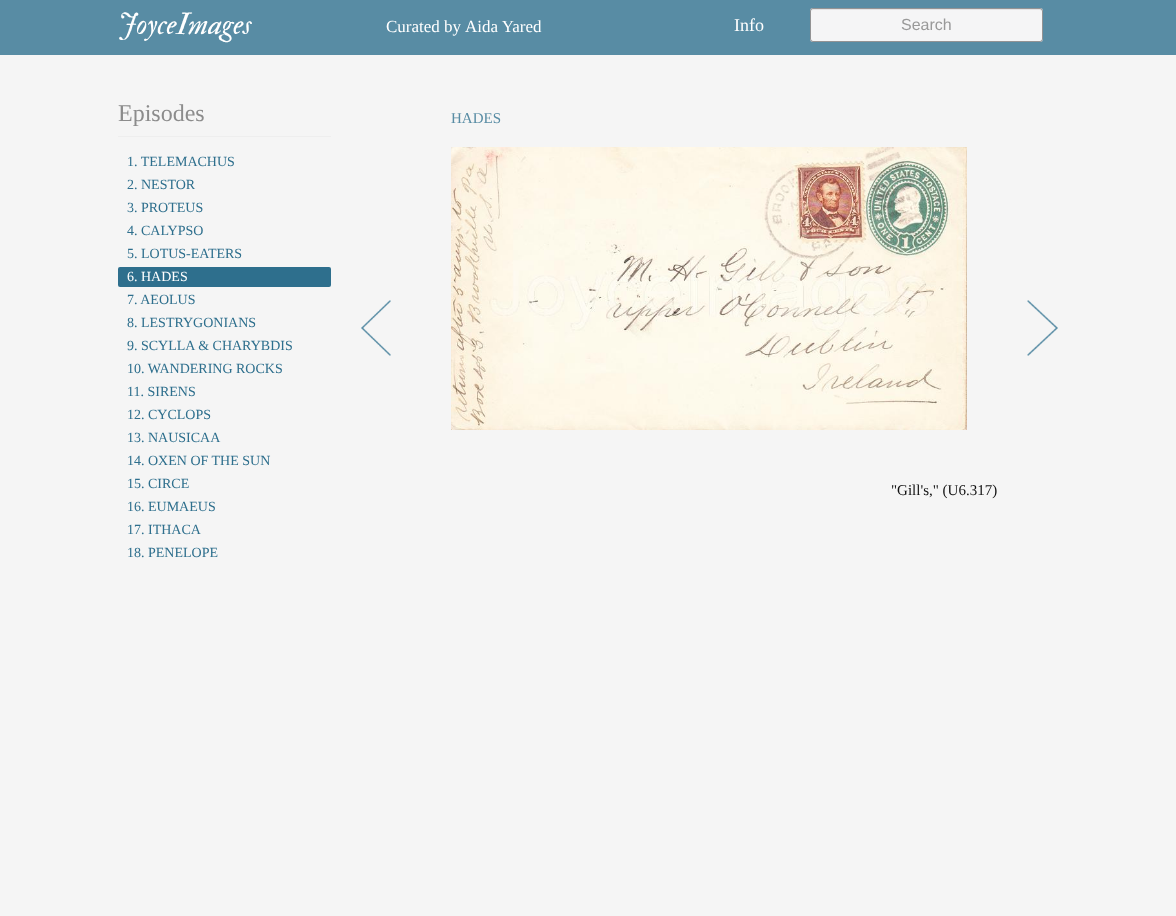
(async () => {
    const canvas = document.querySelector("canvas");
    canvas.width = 1176;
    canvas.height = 916;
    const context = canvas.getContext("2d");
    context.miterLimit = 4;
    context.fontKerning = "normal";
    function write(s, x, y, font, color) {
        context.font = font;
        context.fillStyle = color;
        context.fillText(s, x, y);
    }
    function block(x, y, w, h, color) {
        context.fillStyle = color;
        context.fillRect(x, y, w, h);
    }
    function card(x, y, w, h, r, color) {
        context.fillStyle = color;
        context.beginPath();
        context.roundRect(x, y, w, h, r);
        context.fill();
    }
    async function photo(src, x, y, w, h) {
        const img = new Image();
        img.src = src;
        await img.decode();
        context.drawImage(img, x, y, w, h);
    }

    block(0, 0, 1176, 916, "rgb(245, 245, 245)");
    block(0, 0, 1176, 55, "rgb(88, 140, 164)");
    write("JoyceImages", 118, 34, "italic 30px IM FELL Double Pica", "rgb(255, 255, 255)");
    write("Curated by", 386, 32, "17px Liberation Serif", "rgb(255, 255, 255)");
    write("Aida Yared", 465, 32, "17px Liberation Serif", "rgb(255, 255, 255)");
    write("Info", 734, 31, "18px Liberation Serif", "rgb(255, 255, 255)");
    card(810, 8, 233, 34, 3, "rgb(245, 245, 246)");
    context.fillStyle = "rgb(227, 227, 228)";
    context.beginPath();
    context.moveTo(813, 10);
    context.lineTo(1040, 10);
    context.bezierCurveTo(1041, 10, 1042, 11, 1042, 12);
    context.bezierCurveTo(1042, 11, 1042, 9, 1040, 9);
    context.lineTo(813, 9);
    context.lineTo(812, 10);
    context.lineTo(811, 12);
    context.bezierCurveTo(811, 11, 812, 10, 813, 10);
    context.closePath();
    context.fill();
    context.beginPath();
    context.roundRect(810.5, 8.5, 232, 33, 2.5);
    context.strokeStyle = "rgba(50, 50, 50, 0.5)";
    context.stroke();
    write("Search", 901, 30, "16px Liberation Sans", "rgb(153, 153, 153)");
    write("Episodes", 118, 121, "24px Liberation Serif", "rgb(140, 140, 140)");
    block(118, 136, 213, 1, "rgb(238, 238, 238)");
    write("1. TELEMACHUS", 127, 166, "14px Liberation Serif", "rgb(46, 111, 141)");
    write("2. NESTOR", 127, 189, "14px Liberation Serif", "rgb(46, 111, 141)");
    write("3. PROTEUS", 127, 212, "14px Liberation Serif", "rgb(46, 111, 141)");
    write("4. CALYPSO", 127, 235, "14px Liberation Serif", "rgb(46, 111, 141)");
    write("5. LOTUS-EATERS", 127, 258, "14px Liberation Serif", "rgb(46, 111, 141)");
    card(118, 267, 213, 20, 2, "rgb(46, 111, 141)");
    write("6. HADES", 127, 281, "14px Liberation Serif", "rgb(255, 255, 255)");
    write("7. AEOLUS", 127, 304, "14px Liberation Serif", "rgb(46, 111, 141)");
    write("8. LESTRYGONIANS", 127, 327, "14px Liberation Serif", "rgb(46, 111, 141)");
    write("9. SCYLLA & CHARYBDIS", 127, 350, "14px Liberation Serif", "rgb(46, 111, 141)");
    write("10. WANDERING ROCKS", 127, 373, "14px Liberation Serif", "rgb(46, 111, 141)");
    write("11. SIRENS", 127, 396, "14px Liberation Serif", "rgb(46, 111, 141)");
    write("12. CYCLOPS", 127, 419, "14px Liberation Serif", "rgb(46, 111, 141)");
    write("13. NAUSICAA", 127, 442, "14px Liberation Serif", "rgb(46, 111, 141)");
    write("14. OXEN OF THE SUN", 127, 465, "14px Liberation Serif", "rgb(46, 111, 141)");
    write("15. CIRCE", 127, 488, "14px Liberation Serif", "rgb(46, 111, 141)");
    write("16. EUMAEUS", 127, 511, "14px Liberation Serif", "rgb(46, 111, 141)");
    write("17. ITHACA", 127, 534, "14px Liberation Serif", "rgb(46, 111, 141)");
    write("18. PENELOPE", 127, 557, "14px Liberation Serif", "rgb(46, 111, 141)");
    await photo("media/1.png", 361, 300, 30, 56);
    write("HADES", 451, 123, "15px Liberation Serif", "rgb(88, 140, 164)");
    await photo("media/2.png", 451, 147, 516, 283);
    write("\"Gill's,\" (U6.317)", 891, 495, "15px Liberation Serif", "rgb(17, 17, 17)");
    await photo("media/3.png", 1027, 300, 31, 56);
})();
